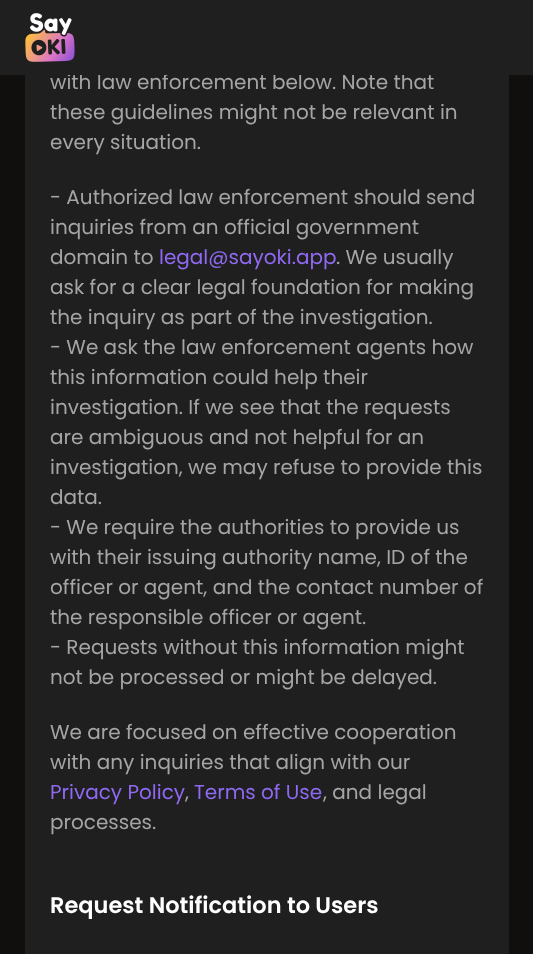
(async () => {
    const canvas = document.querySelector("canvas");
    canvas.width = 533;
    canvas.height = 954;
    const context = canvas.getContext("2d");
    context.miterLimit = 4;
    context.fontKerning = "normal";
    function write(s, x, y, font, color) {
        context.font = font;
        context.fillStyle = color;
        context.fillText(s, x, y);
    }
    function block(x, y, w, h, color) {
        context.fillStyle = color;
        context.fillRect(x, y, w, h);
    }
    async function photo(src, x, y, w, h) {
        const img = new Image();
        img.src = src;
        await img.decode();
        context.drawImage(img, x, y, w, h);
    }

    block(0, 0, 533, 954, "rgb(16, 15, 14)");
    block(25, 75, 484, 879, "rgb(31, 31, 31)");
    write("with law enforcement below. Note that", 50, 89, "20px Poppins", "rgb(165, 165, 165)");
    block(0, 0, 533, 75, "rgb(31, 31, 31)");
    await photo("media/1.png", 25, 13, 50, 49);
    write("these guidelines might not be relevant in", 50, 119, "20px Poppins", "rgb(165, 165, 165)");
    write("every situation.", 50, 149, "20px Poppins", "rgb(165, 165, 165)");
    write("- Authorized law enforcement should send", 50, 204, "20px Poppins", "rgb(165, 165, 165)");
    write("inquiries from an official government", 50, 234, "20px Poppins", "rgb(165, 165, 165)");
    write("domain to", 50, 264, "20px Poppins", "rgb(165, 165, 165)");
    write("legal@sayoki.app", 159, 264, "20px Poppins", "rgb(143, 105, 241)");
    write(". We usually", 336, 264, "20px Poppins", "rgb(165, 165, 165)");
    write("ask for a clear legal foundation for making", 50, 294, "20px Poppins", "rgb(165, 165, 165)");
    write("the inquiry as part of the investigation.", 50, 324, "20px Poppins", "rgb(165, 165, 165)");
    write("- We ask the law enforcement agents how", 50, 354, "20px Poppins", "rgb(165, 165, 165)");
    write("this information could help their", 50, 384, "20px Poppins", "rgb(165, 165, 165)");
    write("investigation. If we see that the requests", 50, 414, "20px Poppins", "rgb(165, 165, 165)");
    write("are ambiguous and not helpful for an", 50, 444, "20px Poppins", "rgb(165, 165, 165)");
    write("investigation, we may refuse to provide this", 50, 474, "20px Poppins", "rgb(165, 165, 165)");
    write("data.", 50, 504, "20px Poppins", "rgb(165, 165, 165)");
    write("- We require the authorities to provide us", 50, 534, "20px Poppins", "rgb(165, 165, 165)");
    write("with their issuing authority name, ID of the", 50, 564, "20px Poppins", "rgb(165, 165, 165)");
    write("officer or agent, and the contact number of", 50, 594, "20px Poppins", "rgb(165, 165, 165)");
    write("the responsible officer or agent.", 50, 624, "20px Poppins", "rgb(165, 165, 165)");
    write("- Requests without this information might", 50, 654, "20px Poppins", "rgb(165, 165, 165)");
    write("not be processed or might be delayed.", 50, 684, "20px Poppins", "rgb(165, 165, 165)");
    write("We are focused on effective cooperation", 50, 739, "20px Poppins", "rgb(165, 165, 165)");
    write("with any inquiries that align with our", 50, 769, "20px Poppins", "rgb(165, 165, 165)");
    write("Privacy Policy", 50, 799, "20px Poppins", "rgb(143, 105, 241)");
    write(",", 185, 799, "20px Poppins", "rgb(165, 165, 165)");
    write("Terms of Use", 194, 799, "20px Poppins", "rgb(143, 105, 241)");
    write(", and legal", 323, 799, "20px Poppins", "rgb(165, 165, 165)");
    write("processes.", 50, 829, "20px Poppins", "rgb(165, 165, 165)");
    write("Request Notification to Users", 50, 913, "600 22.5px Poppins", "rgb(255, 255, 255)");
})();
